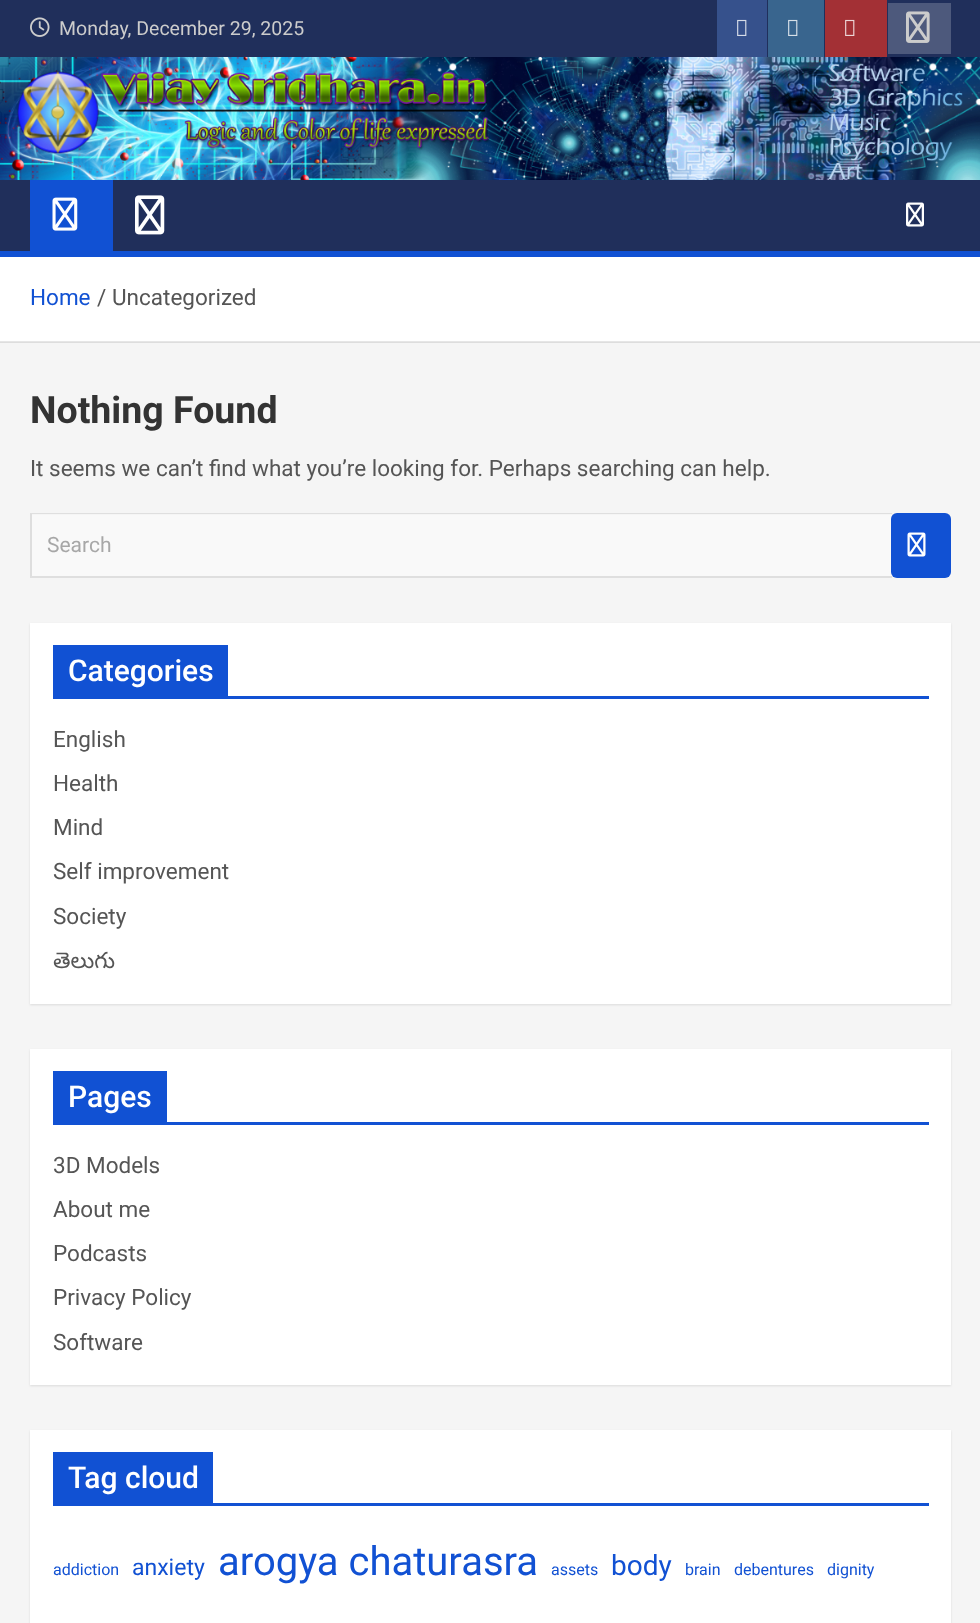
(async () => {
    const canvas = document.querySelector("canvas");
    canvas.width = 980;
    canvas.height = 1623;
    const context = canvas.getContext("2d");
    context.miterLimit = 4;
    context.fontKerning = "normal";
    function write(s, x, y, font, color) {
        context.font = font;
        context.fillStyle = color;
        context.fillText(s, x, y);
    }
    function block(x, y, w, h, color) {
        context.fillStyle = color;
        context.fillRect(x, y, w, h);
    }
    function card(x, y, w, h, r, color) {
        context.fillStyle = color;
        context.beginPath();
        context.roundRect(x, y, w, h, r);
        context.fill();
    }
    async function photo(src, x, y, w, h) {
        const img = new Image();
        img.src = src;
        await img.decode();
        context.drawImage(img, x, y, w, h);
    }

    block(0, 0, 980, 1623, "rgb(245, 245, 245)");
    block(0, 342, 980, 1, "rgb(221, 221, 221)");
    block(0, 0, 980, 57, "rgb(32, 47, 91)");
    await photo("media/1.png", 30, 17, 20, 20);
    write("Monday, December 29, 2025", 59, 35, "19.5px Roboto", "rgb(204, 204, 204)");
    block(717, 0, 50, 57, "rgb(54, 81, 140)");
    await photo("media/2.png", 737, 19, 10, 17);
    block(768, 0, 56, 57, "rgb(57, 101, 142)");
    await photo("media/3.png", 788, 19, 10, 17);
    block(825, 0, 62, 57, "rgb(163, 48, 53)");
    await photo("media/4.png", 845, 19, 10, 17);
    block(888, 3, 63, 51, "rgb(77, 89, 124)");
    await photo("media/5.png", 906, 11, 24, 32);
    await photo("media/6.png", 0, 57, 980, 123);
    block(0, 180, 980, 71, "rgb(32, 47, 91)");
    block(30, 180, 83, 71, "rgb(17, 81, 211)");
    await photo("media/7.png", 52, 197, 26, 34);
    await photo("media/8.png", 135, 195, 30, 40);
    await photo("media/9.png", 906, 202, 18, 25);
    block(0, 251, 980, 6, "rgb(17, 81, 211)");
    block(0, 257, 980, 84, "rgb(255, 255, 255)");
    block(0, 341, 980, 1, "rgb(230, 230, 230)");
    write("Home", 30, 305, "22.5px Roboto", "rgb(17, 81, 211)");
    write("/", 97, 305, "22.5px Roboto", "rgb(85, 85, 85)");
    write("Uncategorized", 112, 305, "22.5px Roboto", "rgb(85, 85, 85)");
    write("Nothing Found", 30, 423, "bold 37.5px Roboto", "rgb(51, 51, 51)");
    write("It seems we can’t find what you’re looking for. Perhaps searching can help.", 30, 476, "22.5px Roboto", "rgb(85, 85, 85)");
    block(32, 515, 861, 61, "rgb(249, 249, 249)");
    context.fillStyle = "rgb(223, 223, 223)";
    context.beginPath();
    context.moveTo(30, 513);
    context.lineTo(892, 513);
    context.lineTo(892, 514);
    context.lineTo(32, 514);
    context.closePath();
    context.fill();
    context.beginPath();
    context.moveTo(892, 578);
    context.lineTo(30, 578);
    context.lineTo(32, 576);
    context.lineTo(892, 576);
    context.closePath();
    context.fill();
    context.fillStyle = "rgba(0, 0, 0, 0.09)";
    context.beginPath();
    context.moveTo(30, 578);
    context.lineTo(30, 513);
    context.lineTo(32, 514);
    context.lineTo(32, 576);
    context.closePath();
    context.fill();
    write("Search", 47, 552, "21px Roboto", "rgb(167, 167, 167)");
    card(891, 513, 60, 65, 6, "rgb(17, 81, 211)");
    await photo("media/10.png", 907, 532, 19, 25);
    context.fillStyle = "rgba(0, 0, 0, 0.1)";
    context.filter = "blur(1px)";
    context.beginPath();
    context.rect(30, 624, 921, 381);
    context.fill();
    context.filter = "none";
    block(30, 623, 921, 381, "rgb(255, 255, 255)");
    block(53, 696, 876, 3, "rgb(17, 81, 211)");
    block(53, 645, 175, 51, "rgb(17, 81, 211)");
    write("Categories", 68, 681, "500 30px Roboto", "rgb(255, 255, 255)");
    write("English", 53, 747, "22.5px Roboto", "rgb(85, 85, 85)");
    write("Health", 53, 791, "22.5px Roboto", "rgb(85, 85, 85)");
    write("Mind", 53, 835, "22.5px Roboto", "rgb(85, 85, 85)");
    write("Self improvement", 53, 879, "22.5px Roboto", "rgb(85, 85, 85)");
    write("Society", 53, 924, "22.5px Roboto", "rgb(85, 85, 85)");
    write("తెలుగు", 53, 968, "22.5px Noto Sans Telugu", "rgb(85, 85, 85)");
    context.fillStyle = "rgba(0, 0, 0, 0.1)";
    context.filter = "blur(1px)";
    context.beginPath();
    context.rect(30, 1050, 921, 336);
    context.fill();
    context.filter = "none";
    block(30, 1049, 921, 336, "rgb(255, 255, 255)");
    block(53, 1122, 876, 3, "rgb(17, 81, 211)");
    block(53, 1071, 114, 51, "rgb(17, 81, 211)");
    write("Pages", 68, 1107, "500 30px Roboto", "rgb(255, 255, 255)");
    write("3D Models", 53, 1173, "22.5px Roboto", "rgb(85, 85, 85)");
    write("About me", 53, 1217, "22.5px Roboto", "rgb(85, 85, 85)");
    write("Podcasts", 53, 1261, "22.5px Roboto", "rgb(85, 85, 85)");
    write("Privacy Policy", 53, 1305, "22.5px Roboto", "rgb(85, 85, 85)");
    write("Software", 53, 1350, "22.5px Roboto", "rgb(85, 85, 85)");
    context.fillStyle = "rgba(0, 0, 0, 0.1)";
    context.filter = "blur(1px)";
    context.beginPath();
    context.rect(30, 1431, 921, 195);
    context.fill();
    context.filter = "none";
    block(30, 1430, 921, 193, "rgb(255, 255, 255)");
    block(53, 1503, 876, 3, "rgb(17, 81, 211)");
    block(53, 1452, 160, 51, "rgb(17, 81, 211)");
    write("Tag cloud", 68, 1488, "500 30px Roboto", "rgb(255, 255, 255)");
    write("addiction", 53, 1575, "16px Roboto", "rgb(17, 81, 211)");
    write("anxiety", 132, 1575, "23px Roboto", "rgb(17, 81, 211)");
    write("arogya chaturasra", 218, 1575, "40px Roboto", "rgb(17, 81, 211)");
    write("assets", 551, 1575, "16px Roboto", "rgb(17, 81, 211)");
    write("body", 611, 1575, "28px Roboto", "rgb(17, 81, 211)");
    write("brain", 685, 1575, "16px Roboto", "rgb(17, 81, 211)");
    write("debentures", 734, 1575, "16px Roboto", "rgb(17, 81, 211)");
    write("dignity", 827, 1575, "16px Roboto", "rgb(17, 81, 211)");
})();
